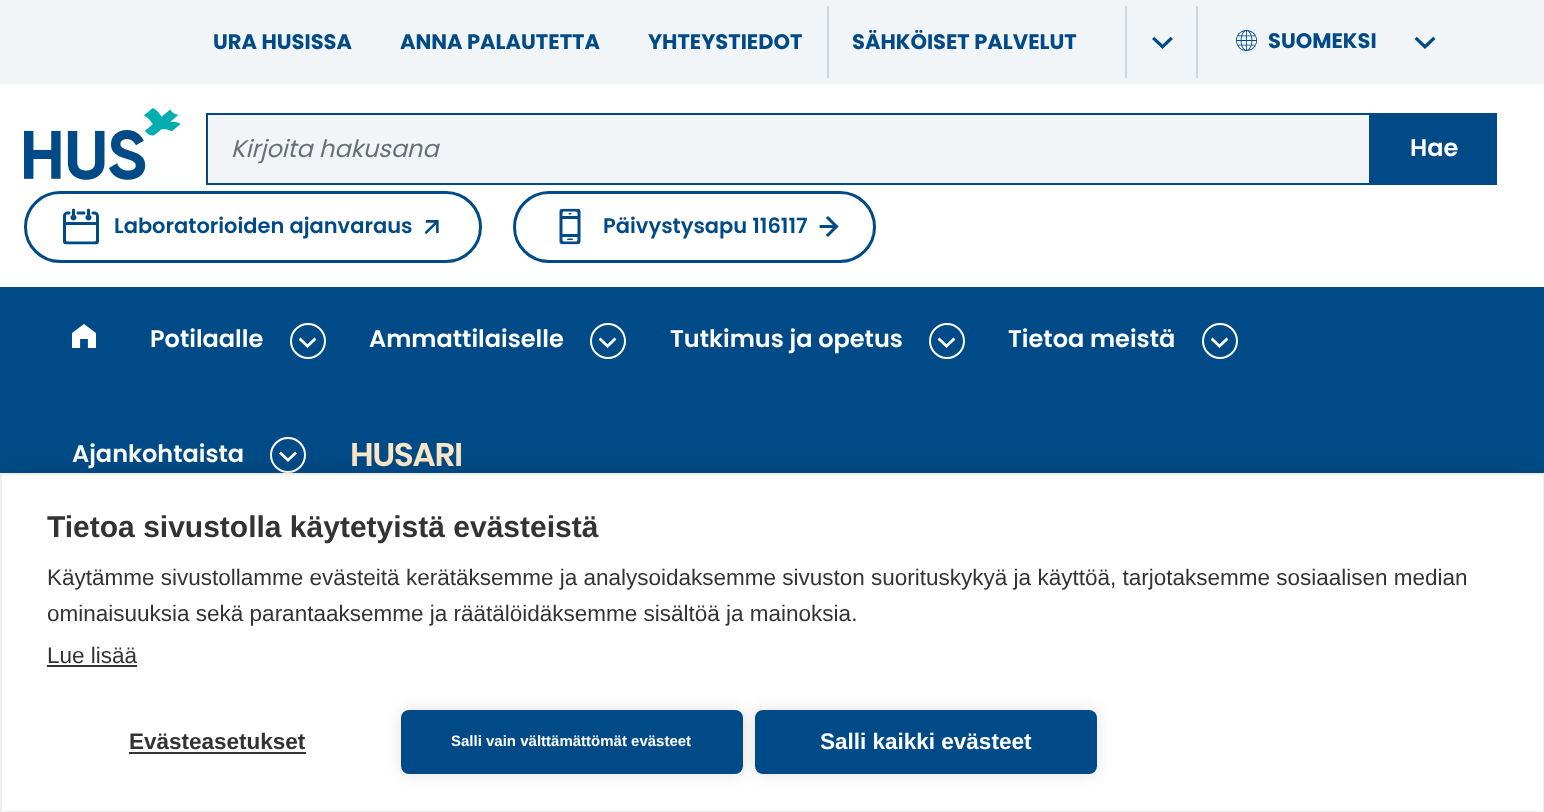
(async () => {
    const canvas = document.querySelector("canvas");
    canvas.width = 1544;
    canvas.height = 812;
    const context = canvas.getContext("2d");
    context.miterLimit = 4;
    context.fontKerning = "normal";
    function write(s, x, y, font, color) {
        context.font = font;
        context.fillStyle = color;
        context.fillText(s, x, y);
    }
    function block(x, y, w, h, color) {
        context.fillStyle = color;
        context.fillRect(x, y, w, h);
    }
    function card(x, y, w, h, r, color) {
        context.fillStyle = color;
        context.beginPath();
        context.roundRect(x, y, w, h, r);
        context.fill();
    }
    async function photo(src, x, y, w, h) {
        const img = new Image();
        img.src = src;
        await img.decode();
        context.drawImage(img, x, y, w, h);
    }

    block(0, 0, 1544, 812, "rgb(255, 255, 255)");
    block(0, 0, 1544, 84, "rgb(242, 245, 247)");
    write("URA HUSISSA", 213, 49, "bold 21px Poppins", "rgb(0, 75, 135)");
    write("ANNA PALAUTETTA", 400, 49, "bold 21px Poppins", "rgb(0, 75, 135)");
    write("YHTEYSTIEDOT", 648, 49, "bold 21px Poppins", "rgb(0, 75, 135)");
    block(827, 6, 2, 72, "rgb(206, 215, 222)");
    write("SÄHKÖISET PALVELUT", 852, 49, "bold 21px Poppins", "rgb(0, 75, 135)");
    block(1196, 6, 2, 72, "rgb(206, 215, 222)");
    block(1125, 6, 2, 72, "rgb(206, 215, 222)");
    await photo("media/1.png", 1152, 36, 21, 13);
    await photo("media/2.png", 1236, 30, 21, 21);
    write("SUOMEKSI", 1268, 48, "bold 21px Poppins", "rgb(0, 75, 135)");
    await photo("media/3.png", 1414, 36, 22, 13);
    await photo("media/4.png", 24, 108, 157, 72);
    context.fillStyle = "rgb(242, 245, 247)";
    context.beginPath();
    context.rect(207, 114, 1163, 70);
    context.fill();
    context.strokeStyle = "rgb(0, 75, 135)";
    context.lineWidth = 2;
    context.stroke();
    write("Kirjoita hakusana", 231, 157, "italic 24px Poppins", "rgb(106, 111, 117)");
    block(1371, 113, 126, 72, "rgb(0, 75, 135)");
    write("Hae", 1410, 156, "600 24px Poppins", "rgb(255, 255, 255)");
    context.beginPath();
    context.roundRect(25.5, 192.5, 455, 69, 34.5);
    context.lineWidth = 3;
    context.stroke();
    await photo("media/5.png", 63, 208, 36, 37);
    write("Laboratorioiden ajanvaraus", 114, 233, "600 21px Poppins", "rgb(0, 75, 135)");
    await photo("media/6.png", 424, 220, 15, 15);
    context.beginPath();
    context.roundRect(514.5, 192.5, 360, 69, 34.5);
    context.stroke();
    await photo("media/7.png", 559, 208, 22, 37);
    write("Päivystysapu 116117", 603, 233, "600 21px Poppins", "rgb(0, 75, 135)");
    await photo("media/8.png", 819, 216, 20, 21);
    block(0, 287, 1544, 186, "rgb(0, 75, 135)");
    await photo("media/9.png", 72, 324, 24, 24);
    write("Potilaalle", 150, 347, "600 24px Poppins", "rgb(255, 255, 255)");
    context.beginPath();
    context.arc(308, 341, 17, 0, Math.PI * 2);
    context.strokeStyle = "rgb(255, 255, 255)";
    context.lineWidth = 2;
    context.stroke();
    await photo("media/10.png", 298, 337, 19, 11);
    write("Ammattilaiselle", 369, 347, "600 24px Poppins", "rgb(255, 255, 255)");
    context.beginPath();
    context.arc(608, 341, 17, 0, Math.PI * 2);
    context.stroke();
    await photo("media/10.png", 598, 337, 19, 11);
    write("Tutkimus ja opetus", 670, 347, "600 24px Poppins", "rgb(255, 255, 255)");
    context.beginPath();
    context.arc(947, 341, 17, 0, Math.PI * 2);
    context.stroke();
    await photo("media/10.png", 937, 337, 19, 11);
    write("Tietoa meistä", 1008, 347, "600 24px Poppins", "rgb(255, 255, 255)");
    context.beginPath();
    context.arc(1220, 341, 17, 0, Math.PI * 2);
    context.stroke();
    await photo("media/10.png", 1210, 337, 19, 11);
    write("Ajankohtaista", 72, 462, "600 24px Poppins", "rgb(255, 255, 255)");
    context.beginPath();
    context.arc(288, 455, 17, 0, Math.PI * 2);
    context.stroke();
    await photo("media/11.png", 279, 451, 18, 11);
    context.letterSpacing = "-1.5px";
    write("HUSARI", 350, 466, "600 33px Poppins", "rgb(253, 233, 200)");
    context.fillStyle = "rgba(0, 0, 0, 0.1)";
    context.filter = "blur(15px)";
    context.beginPath();
    context.rect(0, 473, 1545, 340);
    context.fill();
    context.filter = "none";
    context.fillStyle = "rgb(255, 255, 255)";
    context.beginPath();
    context.rect(1, 474, 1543, 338);
    context.fill();
    context.strokeStyle = "rgb(238, 238, 238)";
    context.stroke();
    context.save();
    context.beginPath();
    context.rect(47, 512, 1452, 198);
    context.clip();
    context.letterSpacing = "0px";
    write("Tietoa sivustolla käytetyistä evästeistä", 47, 537, "bold 30px Liberation Sans", "rgb(51, 51, 51)");
    context.restore();
    context.letterSpacing = "0px";
    write("Käytämme sivustollamme evästeitä kerätäksemme ja analysoidaksemme sivuston suorituskykyä ja käyttöä, tarjotaksemme sosiaalisen median", 47, 585, "22.5px Liberation Sans", "rgb(51, 51, 51)");
    write("ominaisuuksia sekä parantaaksemme ja räätälöidäksemme sisältöä ja mainoksia.", 47, 621, "22.5px Liberation Sans", "rgb(51, 51, 51)");
    write("Lue lisää", 47, 663, "22.5px Liberation Sans", "rgb(51, 51, 51)");
    block(47, 665, 90, 2, "rgb(51, 51, 51)");
    write("Evästeasetukset", 129, 749, "bold 22.5px Liberation Sans", "rgb(51, 51, 51)");
    block(129, 752, 177, 2, "rgb(51, 51, 51)");
    context.fillStyle = "rgba(0, 0, 0, 0.12)";
    context.filter = "blur(7.5px)";
    context.beginPath();
    context.roundRect(401, 710, 342, 64, 8);
    context.fill();
    context.filter = "none";
    card(401, 710, 342, 64, 8, "rgb(0, 75, 135)");
    write("Salli vain välttämättömät evästeet", 451, 746, "bold 15px Liberation Sans", "rgb(255, 255, 255)");
    context.fillStyle = "rgba(0, 0, 0, 0.12)";
    context.filter = "blur(7.5px)";
    context.beginPath();
    context.roundRect(755, 710, 342, 64, 8);
    context.fill();
    context.filter = "none";
    card(755, 710, 342, 64, 8, "rgb(0, 75, 135)");
    write("Salli kaikki evästeet", 820, 749, "bold 22.5px Liberation Sans", "rgb(255, 255, 255)");
})();
